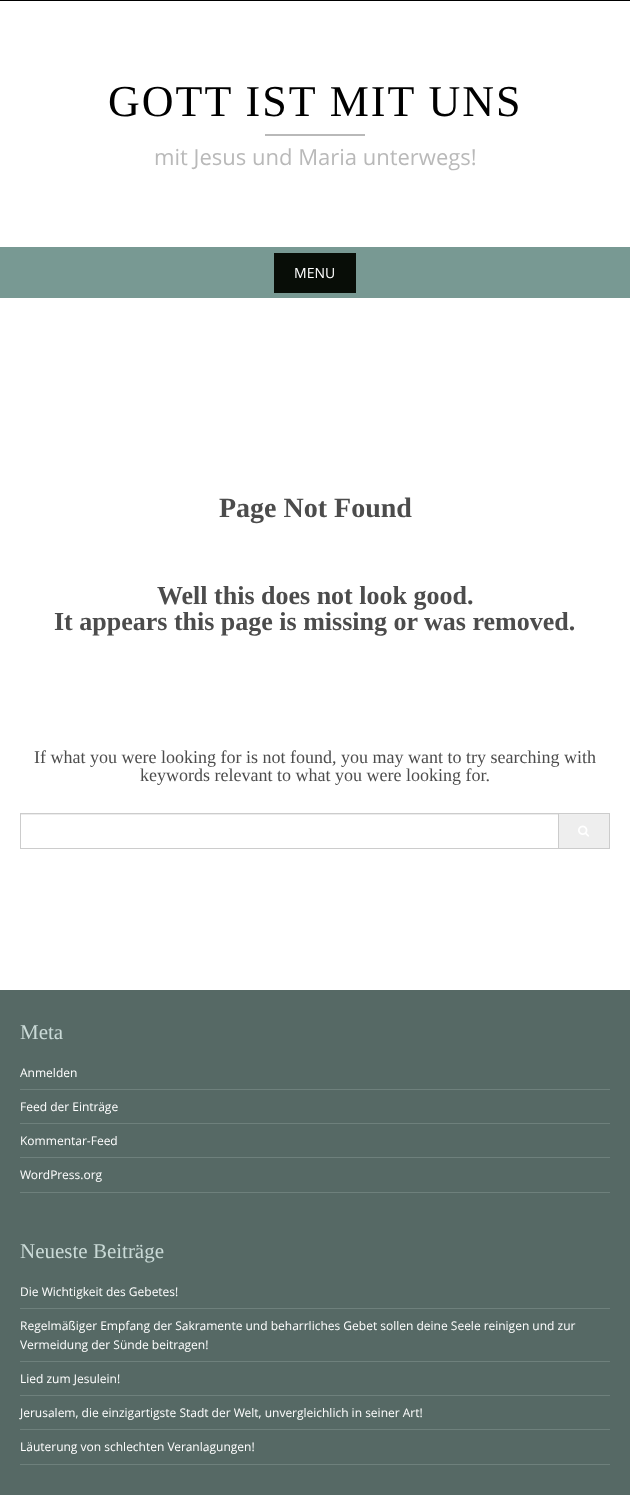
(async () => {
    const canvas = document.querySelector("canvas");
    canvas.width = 630;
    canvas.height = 1495;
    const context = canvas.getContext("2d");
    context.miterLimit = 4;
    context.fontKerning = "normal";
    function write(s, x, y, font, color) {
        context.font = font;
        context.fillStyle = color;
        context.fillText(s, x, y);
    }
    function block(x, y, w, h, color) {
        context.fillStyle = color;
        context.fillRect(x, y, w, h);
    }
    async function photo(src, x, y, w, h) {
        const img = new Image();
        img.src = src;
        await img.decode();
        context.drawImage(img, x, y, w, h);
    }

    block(0, 0, 630, 1495, "rgb(0, 0, 0)");
    block(0, 1, 630, 246, "rgb(255, 255, 255)");
    context.letterSpacing = "2px";
    write("GOTT IST MIT UNS", 108, 116, "44px Liberation Serif", "rgb(0, 0, 0)");
    block(265, 134, 100, 2, "rgb(185, 185, 185)");
    context.letterSpacing = "0px";
    write("mit Jesus und Maria unterwegs!", 154, 165, "22px Open Sans", "rgb(185, 185, 185)");
    block(0, 247, 630, 51, "rgb(120, 153, 147)");
    block(274, 253, 82, 40, "rgb(8, 13, 7)");
    write("MENU", 294, 278, "14px Open Sans", "rgb(255, 255, 255)");
    block(0, 298, 630, 692, "rgb(255, 255, 255)");
    write("Page Not Found", 219, 517, "bold 28px Liberation Serif", "rgb(76, 76, 76)");
    write("Well this does not look good.", 157, 604, "bold 26px Liberation Serif", "rgb(76, 76, 76)");
    write("It appears this page is missing or was removed.", 54, 630, "bold 26px Liberation Serif", "rgb(76, 76, 76)");
    write("If what you were looking for is not found, you may want to try searching with", 34, 763, "18px Liberation Serif", "rgb(76, 76, 76)");
    write("keywords relevant to what you were looking for.", 140, 781, "18px Liberation Serif", "rgb(76, 76, 76)");
    block(559, 814, 50, 34, "rgb(238, 238, 238)");
    context.strokeStyle = "rgb(204, 204, 204)";
    context.strokeRect(557.5, 813.5, 52, 35);
    block(557, 815, 1, 33, "rgb(255, 255, 255)");
    block(21, 814, 537, 1, "rgb(236, 236, 236)");
    context.strokeRect(20.5, 813.5, 538, 35);
    await photo("media/1.png", 578, 825, 11, 12);
    block(0, 990, 630, 505, "rgb(86, 105, 101)");
    write("Meta", 20, 1039, "21px Liberation Serif", "rgb(202, 218, 215)");
    block(20, 1089, 590, 1, "rgb(110, 128, 124)");
    write("Anmelden", 20, 1077, "12px Open Sans", "rgb(255, 255, 255)");
    block(20, 1123, 590, 1, "rgb(110, 128, 124)");
    write("Feed der Einträge", 20, 1111, "12px Open Sans", "rgb(255, 255, 255)");
    block(20, 1157, 590, 1, "rgb(110, 128, 124)");
    write("Kommentar-Feed", 20, 1145, "12px Open Sans", "rgb(255, 255, 255)");
    block(20, 1192, 590, 1, "rgb(110, 128, 124)");
    write("WordPress.org", 20, 1179, "12px Open Sans", "rgb(255, 255, 255)");
    write("Neueste Beiträge", 20, 1258, "21px Liberation Serif", "rgb(202, 218, 215)");
    block(20, 1308, 590, 1, "rgb(110, 128, 124)");
    write("Die Wichtigkeit des Gebetes!", 20, 1296, "12px Open Sans", "rgb(255, 255, 255)");
    block(20, 1361, 590, 1, "rgb(110, 128, 124)");
    write("Regelmäßiger Empfang der Sakramente und beharrliches Gebet sollen deine Seele reinigen und zur", 20, 1330, "12px Open Sans", "rgb(255, 255, 255)");
    write("Vermeidung der Sünde beitragen!", 20, 1349, "12px Open Sans", "rgb(255, 255, 255)");
    block(20, 1395, 590, 1, "rgb(110, 128, 124)");
    write("Lied zum Jesulein!", 20, 1383, "12px Open Sans", "rgb(255, 255, 255)");
    block(20, 1429, 590, 1, "rgb(110, 128, 124)");
    write("Jerusalem, die einzigartigste Stadt der Welt, unvergleichlich in seiner Art!", 20, 1417, "12px Open Sans", "rgb(255, 255, 255)");
    block(20, 1464, 590, 1, "rgb(110, 128, 124)");
    write("Läuterung von schlechten Veranlagungen!", 20, 1451, "12px Open Sans", "rgb(255, 255, 255)");
})();
